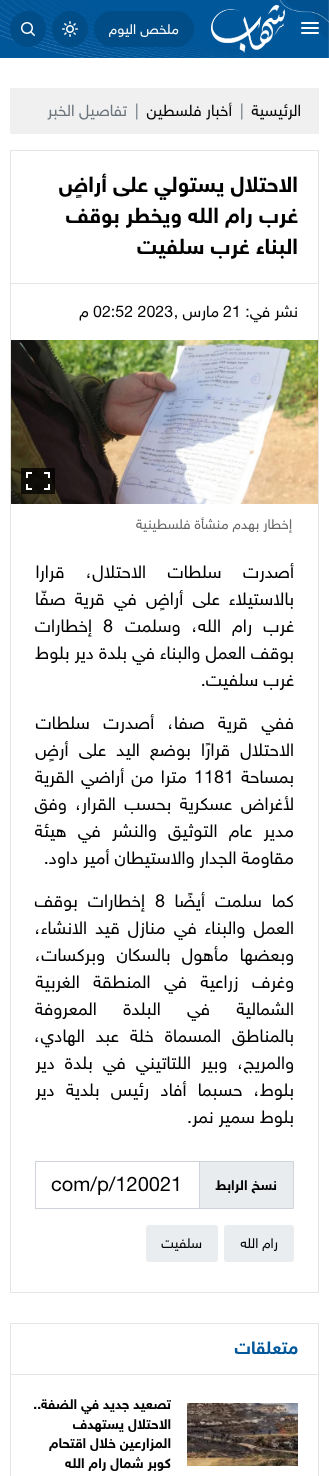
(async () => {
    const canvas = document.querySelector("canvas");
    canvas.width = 329;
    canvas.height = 1476;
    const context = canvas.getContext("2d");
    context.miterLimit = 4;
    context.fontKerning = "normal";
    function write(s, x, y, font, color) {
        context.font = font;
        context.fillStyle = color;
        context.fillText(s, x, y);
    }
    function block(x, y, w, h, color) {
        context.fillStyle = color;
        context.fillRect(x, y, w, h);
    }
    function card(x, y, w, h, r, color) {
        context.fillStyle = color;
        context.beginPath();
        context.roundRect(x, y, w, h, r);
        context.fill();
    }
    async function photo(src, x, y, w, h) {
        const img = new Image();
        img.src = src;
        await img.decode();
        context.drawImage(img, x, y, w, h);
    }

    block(0, 0, 329, 1476, "rgb(255, 255, 255)");
    await photo("media/1.png", 0, 0, 329, 58);
    card(301, 32, 18, 2, 1, "rgb(255, 255, 255)");
    card(301, 22, 18, 2, 1, "rgb(255, 255, 255)");
    card(301, 27, 18, 2, 1, "rgb(255, 255, 255)");
    await photo("media/2.png", 211, 5, 74, 48);
    card(94, 11, 100, 36, 18, "rgb(0, 77, 136)");
    context.direction = "rtl";
    write("ملخص", 179, 34, "14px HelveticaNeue", "rgb(255, 255, 255)");
    write("اليوم", 136, 34, "14px HelveticaNeue", "rgb(255, 255, 255)");
    context.fillStyle = "rgb(0, 77, 136)";
    context.beginPath();
    context.arc(70, 29, 18, 0, Math.PI * 2);
    context.fill();
    await photo("media/3.png", 62, 21, 16, 16);
    context.beginPath();
    context.arc(28, 29, 18, 0, Math.PI * 2);
    context.fill();
    await photo("media/4.png", 21, 22, 14, 14);
    block(10, 88, 309, 46, "rgb(240, 240, 240)");
    write("الرئيسية", 301, 116, "16px HelveticaNeue", "rgb(0, 0, 0)");
    context.direction = "ltr";
    write("|", 240, 116, "16px HelveticaNeue", "rgb(108, 117, 125)");
    context.direction = "rtl";
    write("أخبار فلسطين", 232, 116, "16px HelveticaNeue", "rgb(0, 0, 0)");
    context.direction = "ltr";
    write("|", 135, 116, "16px HelveticaNeue", "rgb(108, 117, 125)");
    context.direction = "rtl";
    write("تفاصيل الخبر", 127, 116, "16px HelveticaNeue", "rgb(108, 117, 125)");
    context.strokeStyle = "rgb(229, 229, 229)";
    context.strokeRect(10.5, 150.5, 308, 1142);
    write("الاحتلال يستولي على أراضٍ", 298, 192, "bold 22px HelveticaNeue", "rgb(0, 0, 0)");
    write("غرب رام الله ويخطر بوقف", 298, 223, "bold 22px HelveticaNeue", "rgb(0, 0, 0)");
    write("البناء غرب سلفيت", 298, 254, "bold 22px HelveticaNeue", "rgb(0, 0, 0)");
    block(11, 283, 307, 1, "rgb(229, 229, 229)");
    write("نشر في:", 298, 317, "16px HelveticaNeue", "rgb(0, 0, 0)");
    context.direction = "ltr";
    write("21", 223, 317, "16px HelveticaNeue", "rgb(0, 0, 0)");
    context.direction = "rtl";
    write("مارس ,", 219, 317, "16px HelveticaNeue", "rgb(0, 0, 0)");
    context.direction = "ltr";
    write("02:52 2023", 93, 317, "16px HelveticaNeue", "rgb(0, 0, 0)");
    context.direction = "rtl";
    write("م", 89, 317, "16px HelveticaNeue", "rgb(0, 0, 0)");
    await photo("media/5.png", 11, 340, 307, 164);
    block(21, 468, 34, 26, "rgba(0, 0, 0, 0.75)");
    await photo("media/6.png", 26, 472, 24, 18);
    write("إخطار بهدم منشأة فلسطينية", 292, 529, "14px HelveticaNeue", "rgb(102, 102, 102)");
    context.wordSpacing = "16.5px";
    write("أصدرت سلطات الاحتلال، قرارا", 294, 578, "18px HelveticaNeue", "rgb(0, 0, 0)");
    context.wordSpacing = "4.25px";
    write("بالاستيلاء على أراضٍ في قرية صفّا", 294, 605, "18px HelveticaNeue", "rgb(0, 0, 0)");
    context.wordSpacing = "6px";
    write("غرب رام الله، وسلمت", 294, 632, "18px HelveticaNeue", "rgb(0, 0, 0)");
    context.wordSpacing = "0px";
    context.direction = "ltr";
    write("8", 103, 632, "18px HelveticaNeue", "rgb(0, 0, 0)");
    context.direction = "rtl";
    write("إخطارات", 92, 632, "18px HelveticaNeue", "rgb(0, 0, 0)");
    write("بوقف العمل والبناء في بلدة دير بلوط", 294, 659, "18px HelveticaNeue", "rgb(0, 0, 0)");
    write("غرب سلفيت.", 294, 686, "18px HelveticaNeue", "rgb(0, 0, 0)");
    context.wordSpacing = "8.5px";
    write("ففي قرية صفا، أصدرت سلطات", 294, 729, "18px HelveticaNeue", "rgb(0, 0, 0)");
    context.wordSpacing = "5.25px";
    write("الاحتلال قرارًا بوضع اليد على أرضٍ", 294, 756, "18px HelveticaNeue", "rgb(0, 0, 0)");
    context.wordSpacing = "0px";
    write("بمساحة", 294, 783, "18px HelveticaNeue", "rgb(0, 0, 0)");
    context.direction = "ltr";
    write("1181", 194, 783, "18px HelveticaNeue", "rgb(0, 0, 0)");
    context.wordSpacing = "2px";
    context.direction = "rtl";
    write("مترا من أراضي القرية", 187, 783, "18px HelveticaNeue", "rgb(0, 0, 0)");
    context.wordSpacing = "3.5px";
    write("لأغراض عسكرية بحسب القرار، وفق", 294, 810, "18px HelveticaNeue", "rgb(0, 0, 0)");
    context.wordSpacing = "6.25px";
    write("مدير عام التوثيق والنشر في هيئة", 294, 837, "18px HelveticaNeue", "rgb(0, 0, 0)");
    context.wordSpacing = "0px";
    write("مقاومة الجدار والاستيطان أمير داود.", 294, 864, "18px HelveticaNeue", "rgb(0, 0, 0)");
    context.wordSpacing = "5px";
    write("كما سلمت أيضًا", 294, 907, "18px HelveticaNeue", "rgb(0, 0, 0)");
    context.wordSpacing = "0px";
    context.direction = "ltr";
    write("8", 155, 907, "18px HelveticaNeue", "rgb(0, 0, 0)");
    context.wordSpacing = "5px";
    context.direction = "rtl";
    write("إخطارات بوقف", 145, 907, "18px HelveticaNeue", "rgb(0, 0, 0)");
    context.wordSpacing = "3.25px";
    write("العمل والبناء في منازل قيد الانشاء،", 294, 934, "18px HelveticaNeue", "rgb(0, 0, 0)");
    context.wordSpacing = "6.25px";
    write("وبعضها مأهول بالسكان وبركسات،", 294, 961, "18px HelveticaNeue", "rgb(0, 0, 0)");
    context.wordSpacing = "8.5px";
    write("وغرف زراعية في المنطقة الغربية", 294, 988, "18px HelveticaNeue", "rgb(0, 0, 0)");
    context.wordSpacing = "21.5px";
    write("الشمالية في البلدة المعروفة", 294, 1015, "18px HelveticaNeue", "rgb(0, 0, 0)");
    context.wordSpacing = "6px";
    write("بالمناطق المسماة خلة عبد الهادي،", 294, 1042, "18px HelveticaNeue", "rgb(0, 0, 0)");
    context.wordSpacing = "5px";
    write("والمريج، وبير اللتاتيني في بلدة دير", 294, 1069, "18px HelveticaNeue", "rgb(0, 0, 0)");
    context.wordSpacing = "6.25px";
    write("بلوط، حسبما أفاد رئيس بلدية دير", 294, 1096, "18px HelveticaNeue", "rgb(0, 0, 0)");
    context.wordSpacing = "0px";
    write("بلوط سمير نمر.", 294, 1123, "18px HelveticaNeue", "rgb(0, 0, 0)");
    context.fillStyle = "rgb(233, 236, 239)";
    context.beginPath();
    context.rect(199.5, 1161.5, 94, 47);
    context.fill();
    context.strokeStyle = "rgb(206, 212, 218)";
    context.stroke();
    write("نسخ الرابط", 277, 1190, "bold 14px HelveticaNeue", "rgb(0, 0, 0)");
    context.strokeRect(35.5, 1161.5, 164, 47);
    context.direction = "ltr";
    write("com/p/120021", 51, 1191, "20px HelveticaNeue", "rgb(0, 0, 0)");
    card(224, 1225, 70, 37, 3, "rgb(234, 237, 240)");
    context.direction = "rtl";
    write("رام الله", 278, 1248, "14px HelveticaNeue", "rgb(0, 0, 0)");
    card(146, 1225, 72, 37, 3, "rgb(234, 237, 240)");
    write("سلفيت", 202, 1248, "14px HelveticaNeue", "rgb(0, 0, 0)");
    context.strokeStyle = "rgb(229, 229, 229)";
    context.strokeRect(10.5, 1323.5, 308, 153);
    write("متعلقات", 298, 1354, "bold 18px HelveticaNeue", "rgb(0, 87, 154)");
    block(11, 1374, 307, 1, "rgb(229, 229, 229)");
    await photo("media/7.png", 187, 1403, 111, 63);
    write("تصعيد جديد في الضفة..", 171, 1409, "bold 14px HelveticaNeue", "rgb(0, 0, 0)");
    write("الاحتلال يستهدف", 171, 1429, "bold 14px HelveticaNeue", "rgb(0, 0, 0)");
    write("المزارعين خلال اقتحام", 171, 1448, "bold 14px HelveticaNeue", "rgb(0, 0, 0)");
    write("كوبر شمال رام الله", 171, 1468, "bold 14px HelveticaNeue", "rgb(0, 0, 0)");
})();
